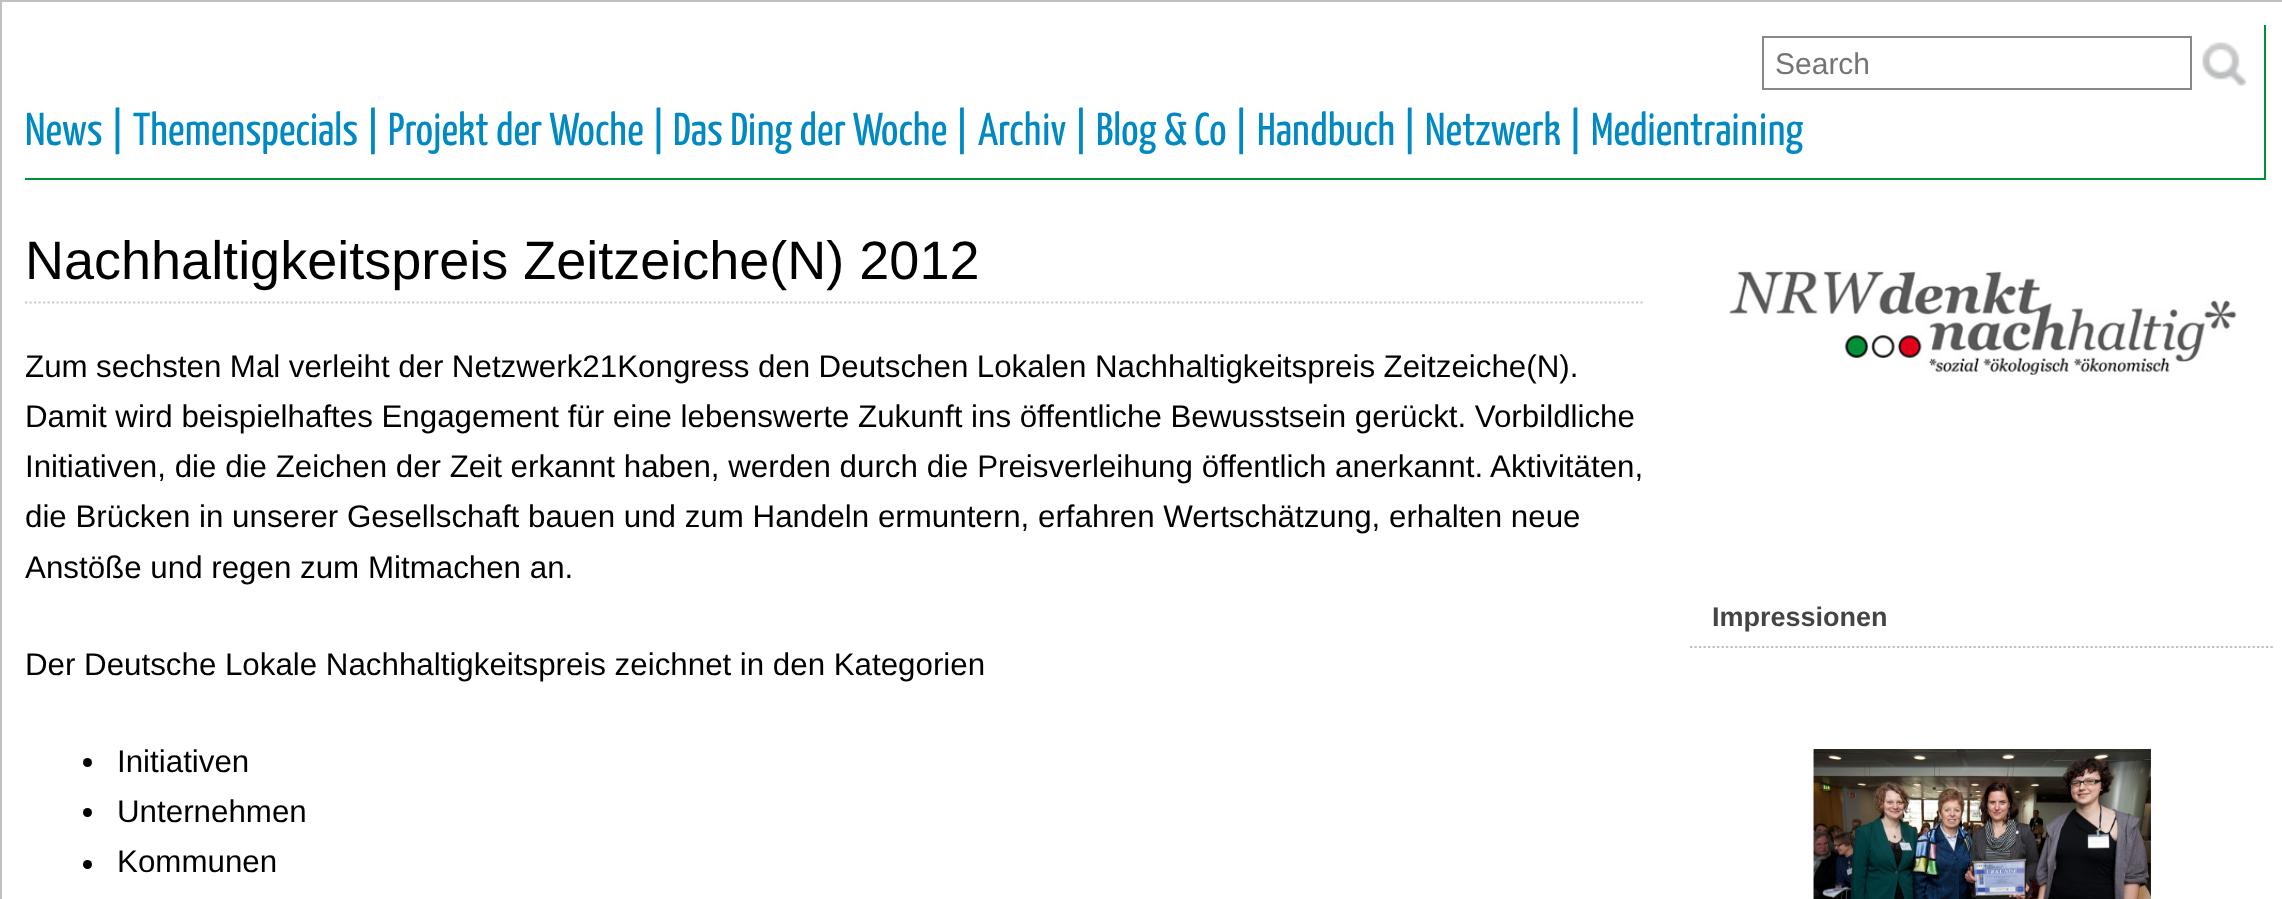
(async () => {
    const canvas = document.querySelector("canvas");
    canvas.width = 2282;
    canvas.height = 899;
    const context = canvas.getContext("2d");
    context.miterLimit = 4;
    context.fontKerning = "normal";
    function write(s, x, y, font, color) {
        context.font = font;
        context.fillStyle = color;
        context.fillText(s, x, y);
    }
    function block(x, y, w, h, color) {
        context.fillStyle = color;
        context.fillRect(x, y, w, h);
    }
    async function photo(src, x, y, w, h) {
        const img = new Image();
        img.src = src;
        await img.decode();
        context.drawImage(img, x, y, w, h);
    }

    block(0, 0, 2282, 899, "rgb(255, 255, 255)");
    context.strokeStyle = "rgb(192, 192, 192)";
    context.lineWidth = 2;
    context.strokeRect(1, 1, 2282, 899);
    block(2264, 25, 2, 155, "rgb(0, 144, 55)");
    block(25, 178, 2241, 2, "rgb(0, 144, 55)");
    context.strokeStyle = "rgb(136, 136, 136)";
    context.strokeRect(1763, 37, 428, 52);
    write("Search", 1775, 74, "30px Liberation Sans", "rgb(117, 117, 117)");
    await photo("media/1.png", 2202, 42, 45, 44);
    write("News |", 25, 145, "200 46px Yanone Kaffeesatz", "rgb(0, 137, 195)");
    write("Themenspecials |", 133, 145, "200 46px Yanone Kaffeesatz", "rgb(0, 137, 195)");
    write("Projekt der Woche |", 388, 145, "200 46px Yanone Kaffeesatz", "rgb(0, 137, 195)");
    write("Das Ding der Woche |", 673, 145, "200 46px Yanone Kaffeesatz", "rgb(0, 137, 195)");
    write("Archiv |", 978, 145, "200 46px Yanone Kaffeesatz", "rgb(0, 137, 195)");
    write("Blog & Co |", 1096, 145, "200 46px Yanone Kaffeesatz", "rgb(0, 137, 195)");
    write("Handbuch |", 1257, 145, "200 46px Yanone Kaffeesatz", "rgb(0, 137, 195)");
    write("Netzwerk |", 1425, 145, "200 46px Yanone Kaffeesatz", "rgb(0, 137, 195)");
    write("Medientraining", 1591, 145, "200 46px Yanone Kaffeesatz", "rgb(0, 137, 195)");
    context.beginPath();
    context.moveTo(25, 302.5);
    context.lineTo(1645, 302.5);
    context.strokeStyle = "rgb(204, 204, 204)";
    context.lineWidth = 2.2;
    context.setLineDash([2.25, 2.25]);
    context.stroke();
    write("Nachhaltigkeitspreis Zeitzeiche(N) 2012", 25, 279, "54px Liberation Sans", "rgb(0, 0, 0)");
    context.wordSpacing = "-0.25px";
    write("Zum sechsten Mal verleiht der Netzwerk21Kongress den Deutschen Lokalen Nachhaltigkeitspreis Zeitzeiche(N).", 25, 377, "31.32px Liberation Sans", "rgb(0, 0, 0)");
    context.wordSpacing = "-0.1px";
    write("Damit wird beispielhaftes Engagement für eine lebenswerte Zukunft ins öffentliche Bewusstsein gerückt. Vorbildliche", 25, 427, "31.32px Liberation Sans", "rgb(0, 0, 0)");
    context.wordSpacing = "0px";
    write("Initiativen, die die Zeichen der Zeit erkannt haben, werden durch die Preisverleihung öffentlich anerkannt. Aktivitäten,", 25, 477, "31.32px Liberation Sans", "rgb(0, 0, 0)");
    write("die Brücken in unserer Gesellschaft bauen und zum Handeln ermuntern, erfahren Wertschätzung, erhalten neue", 25, 527, "31.32px Liberation Sans", "rgb(0, 0, 0)");
    write("Anstöße und regen zum Mitmachen an.", 25, 578, "31.32px Liberation Sans", "rgb(0, 0, 0)");
    context.wordSpacing = "-0.1px";
    write("Der Deutsche Lokale Nachhaltigkeitspreis zeichnet in den Kategorien", 25, 675, "31.32px Liberation Sans", "rgb(0, 0, 0)");
    context.beginPath();
    context.arc(87.5, 762.5, 4.5, 0, Math.PI * 2);
    context.fill();
    context.wordSpacing = "0px";
    write("Initiativen", 117, 772, "31.32px Liberation Sans", "rgb(0, 0, 0)");
    context.beginPath();
    context.arc(87.5, 812.5, 4.5, 0, Math.PI * 2);
    context.fill();
    write("Unternehmen", 117, 822, "31.32px Liberation Sans", "rgb(0, 0, 0)");
    context.beginPath();
    context.arc(87.5, 864.5, 4.5, 0, Math.PI * 2);
    context.fill();
    write("Kommunen", 117, 872, "31.32px Liberation Sans", "rgb(0, 0, 0)");
    await photo("media/2.png", 1729, 270, 508, 106);
    context.beginPath();
    context.moveTo(1690, 647);
    context.lineTo(2275, 647);
    context.strokeStyle = "rgb(192, 192, 192)";
    context.stroke();
    write("Impressionen", 1712, 626, "bold 27px Liberation Sans", "rgb(68, 68, 68)");
    await photo("media/3.png", 1813, 749, 338, 150);
})();
